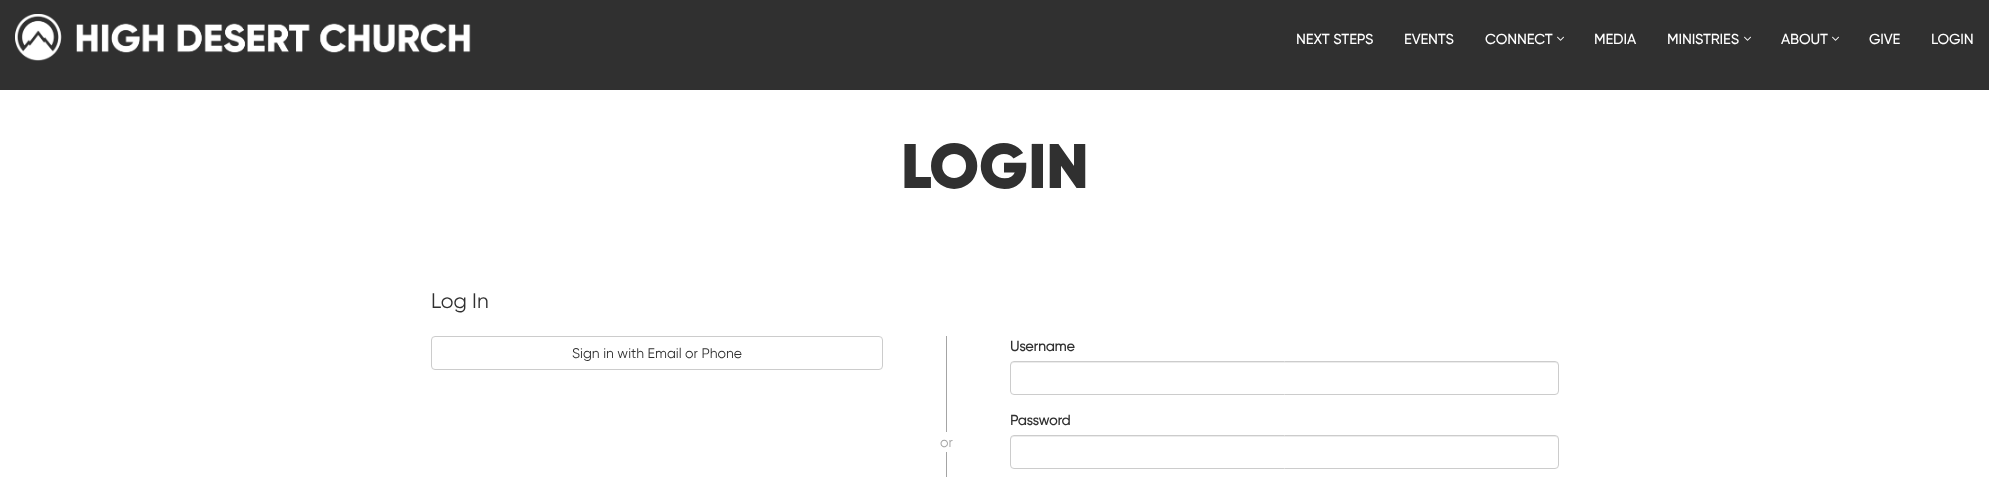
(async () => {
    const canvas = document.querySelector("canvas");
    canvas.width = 1989;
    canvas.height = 477;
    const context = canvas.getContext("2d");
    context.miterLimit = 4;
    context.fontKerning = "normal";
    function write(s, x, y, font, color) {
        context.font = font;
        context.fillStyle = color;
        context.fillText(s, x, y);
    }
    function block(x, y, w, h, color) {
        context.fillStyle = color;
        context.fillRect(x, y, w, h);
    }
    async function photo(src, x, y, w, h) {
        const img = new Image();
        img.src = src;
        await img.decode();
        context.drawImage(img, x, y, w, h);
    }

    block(0, 0, 1989, 477, "rgb(255, 255, 255)");
    block(0, 0, 1989, 90, "rgb(48, 48, 48)");
    await photo("media/1.png", 15, 14, 456, 47);
    context.letterSpacing = "0.25px";
    write("NEXT STEPS", 1296, 44, "bold 14px Gilroy", "rgb(255, 255, 255)");
    write("EVENTS", 1404, 44, "bold 14px Gilroy", "rgb(255, 255, 255)");
    write("CONNECT", 1485, 44, "bold 14px Gilroy", "rgb(255, 255, 255)");
    await photo("media/2.png", 1557, 36, 7, 5);
    write("MEDIA", 1594, 44, "bold 14px Gilroy", "rgb(255, 255, 255)");
    write("MINISTRIES", 1667, 44, "bold 14px Gilroy", "rgb(255, 255, 255)");
    await photo("media/2.png", 1744, 36, 7, 5);
    write("ABOUT", 1781, 44, "bold 14px Gilroy", "rgb(255, 255, 255)");
    await photo("media/2.png", 1832, 36, 7, 5);
    write("GIVE", 1869, 44, "bold 14px Gilroy", "rgb(255, 255, 255)");
    write("LOGIN", 1931, 44, "bold 14px Gilroy", "rgb(255, 255, 255)");
    context.letterSpacing = "0px";
    write("LOGIN", 901, 188, "900 63px Gilroy", "rgb(48, 48, 48)");
    write("Log In", 431, 308, "21px Gilroy", "rgb(48, 48, 48)");
    context.beginPath();
    context.roundRect(431.5, 336.5, 451, 33, 3.5);
    context.strokeStyle = "rgb(204, 204, 204)";
    context.stroke();
    write("Sign in with Email or Phone", 572, 358, "14px Gilroy", "rgb(48, 48, 48)");
    write("Username", 1010, 351, "bold 14px Gilroy", "rgb(48, 48, 48)");
    context.fillStyle = "rgb(236, 236, 236)";
    context.beginPath();
    context.moveTo(1014, 363);
    context.lineTo(1555, 363);
    context.bezierCurveTo(1557, 363, 1558, 364, 1558, 366);
    context.lineTo(1558, 365);
    context.bezierCurveTo(1558, 363, 1557, 362, 1555, 362);
    context.lineTo(1014, 362);
    context.bezierCurveTo(1012, 362, 1011, 363, 1011, 365);
    context.lineTo(1011, 366);
    context.bezierCurveTo(1011, 364, 1012, 363, 1014, 363);
    context.closePath();
    context.fill();
    context.beginPath();
    context.roundRect(1010.5, 361.5, 548, 33, 3.5);
    context.stroke();
    write("Password", 1010, 425, "bold 14px Gilroy", "rgb(48, 48, 48)");
    context.fillStyle = "rgb(236, 236, 236)";
    context.beginPath();
    context.moveTo(1014, 437);
    context.lineTo(1555, 437);
    context.bezierCurveTo(1557, 437, 1558, 438, 1558, 440);
    context.lineTo(1558, 439);
    context.bezierCurveTo(1558, 437, 1557, 436, 1555, 436);
    context.lineTo(1014, 436);
    context.bezierCurveTo(1012, 436, 1011, 437, 1011, 439);
    context.lineTo(1011, 440);
    context.bezierCurveTo(1011, 438, 1012, 437, 1014, 437);
    context.closePath();
    context.fill();
    context.beginPath();
    context.roundRect(1010.5, 435.5, 548, 33, 3.5);
    context.stroke();
    block(946, 336, 1, 96, "rgb(164, 164, 164)");
    write("or", 940, 447, "14px Gilroy", "rgb(164, 164, 164)");
    block(946, 452, 1, 25, "rgb(164, 164, 164)");
})();
